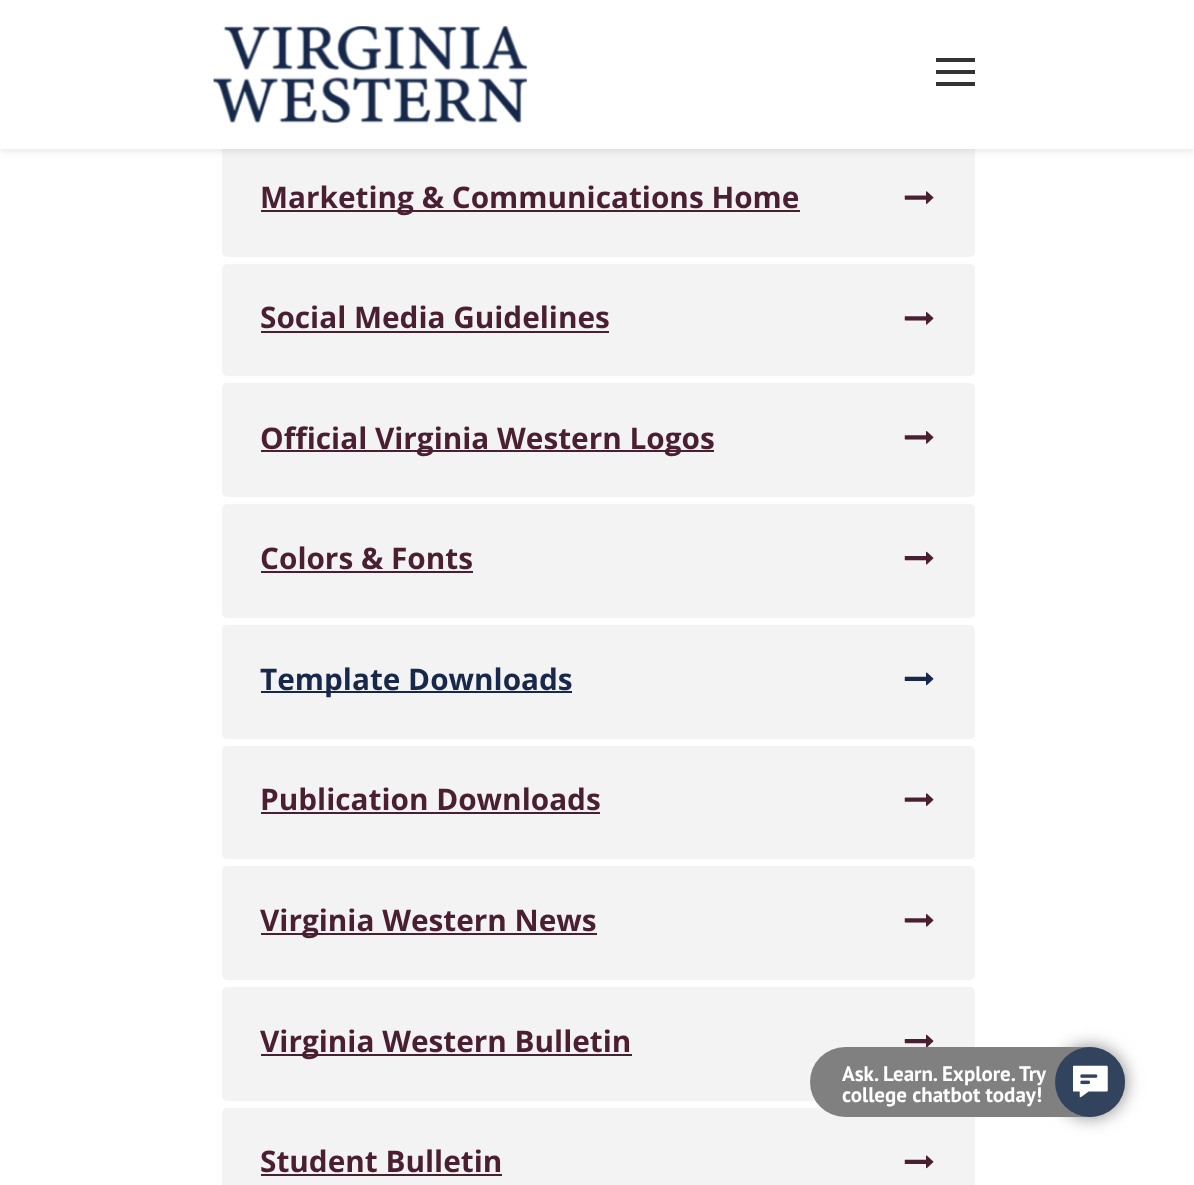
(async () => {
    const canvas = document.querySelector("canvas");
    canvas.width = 1194;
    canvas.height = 1185;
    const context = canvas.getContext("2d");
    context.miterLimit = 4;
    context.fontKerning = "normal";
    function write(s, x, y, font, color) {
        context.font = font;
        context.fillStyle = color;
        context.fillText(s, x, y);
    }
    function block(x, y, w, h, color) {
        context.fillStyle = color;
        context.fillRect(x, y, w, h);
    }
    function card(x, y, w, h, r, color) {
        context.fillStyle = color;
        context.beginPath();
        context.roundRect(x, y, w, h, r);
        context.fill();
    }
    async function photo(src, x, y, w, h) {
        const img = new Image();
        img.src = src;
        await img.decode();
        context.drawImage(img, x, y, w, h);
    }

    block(0, 0, 1194, 1185, "rgb(255, 255, 255)");
    card(222, 144, 753, 113, 5, "rgb(243, 243, 243)");
    context.fillStyle = "rgba(0, 0, 0, 0.1)";
    context.filter = "blur(3.5px)";
    context.beginPath();
    context.rect(0, 2, 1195, 149);
    context.fill();
    context.filter = "none";
    block(0, 0, 1194, 149, "rgb(255, 255, 255)");
    await photo("media/1.png", 212, 26, 316, 97);
    block(936, 58, 39, 4, "rgb(51, 51, 51)");
    block(936, 70, 39, 4, "rgb(51, 51, 51)");
    block(936, 82, 39, 4, "rgb(51, 51, 51)");
    block(261, 210, 539, 2, "rgb(74, 31, 50)");
    write("Marketing & Communications Home", 260, 208, "bold 29.75px Open Sans", "rgb(74, 31, 50)");
    await photo("media/2.png", 904, 191, 30, 13);
    card(222, 264, 753, 112, 5, "rgb(243, 243, 243)");
    write("Social Media Guidelines", 260, 328, "bold 29.75px Open Sans", "rgb(74, 31, 50)");
    block(261, 331, 348, 2, "rgb(74, 31, 50)");
    await photo("media/3.png", 904, 312, 30, 13);
    card(222, 383, 753, 114, 5, "rgb(243, 243, 243)");
    block(261, 450, 453, 2, "rgb(74, 31, 50)");
    write("Official Virginia Western Logos", 260, 449, "bold 29.75px Open Sans", "rgb(74, 31, 50)");
    await photo("media/3.png", 904, 431, 30, 13);
    card(222, 504, 753, 114, 5, "rgb(243, 243, 243)");
    write("Colors & Fonts", 260, 569, "bold 29.75px Open Sans", "rgb(74, 31, 50)");
    block(261, 571, 212, 2, "rgb(74, 31, 50)");
    await photo("media/4.png", 904, 551, 30, 14);
    card(222, 625, 753, 114, 5, "rgb(243, 243, 243)");
    block(261, 691, 311, 2, "rgb(24, 40, 74)");
    write("Template Downloads", 260, 690, "bold 29.75px Open Sans", "rgb(24, 40, 74)");
    await photo("media/5.png", 904, 672, 30, 14);
    card(222, 746, 753, 113, 5, "rgb(243, 243, 243)");
    write("Publication Downloads", 260, 810, "bold 29.75px Open Sans", "rgb(74, 31, 50)");
    block(261, 812, 339, 2, "rgb(74, 31, 50)");
    await photo("media/2.png", 904, 793, 30, 13);
    card(222, 866, 753, 114, 5, "rgb(243, 243, 243)");
    block(261, 933, 336, 2, "rgb(74, 31, 50)");
    write("Virginia Western News", 260, 931, "bold 29.75px Open Sans", "rgb(74, 31, 50)");
    await photo("media/3.png", 904, 914, 30, 13);
    card(222, 987, 753, 114, 5, "rgb(243, 243, 243)");
    block(261, 1054, 371, 2, "rgb(74, 31, 50)");
    write("Virginia Western Bulletin", 260, 1052, "bold 29.75px Open Sans", "rgb(74, 31, 50)");
    await photo("media/6.png", 904, 1034, 30, 13);
    card(222, 1108, 753, 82, 5, "rgb(243, 243, 243)");
    write("Student Bulletin", 260, 1172, "bold 29.75px Open Sans", "rgb(74, 31, 50)");
    block(261, 1174, 241, 2, "rgb(74, 31, 50)");
    await photo("media/7.png", 904, 1155, 30, 14);
    card(810, 1047, 315, 70, 35, "rgb(128, 128, 128)");
    write("Ask. Learn. Explore. Try", 842, 1081, "bold 21px PT Sans", "rgb(255, 255, 255)");
    write("college chatbot today!", 842, 1102, "bold 21px PT Sans", "rgb(255, 255, 255)");
    context.fillStyle = "rgb(128, 128, 128)";
    context.filter = "blur(9px)";
    context.beginPath();
    context.roundRect(1055, 1047, 70, 70, 35);
    context.fill();
    context.filter = "none";
    context.fillStyle = "rgb(49, 67, 93)";
    context.beginPath();
    context.arc(1090, 1082, 35, 0, Math.PI * 2);
    context.fill();
    await photo("media/8.png", 1073, 1065, 35, 33);
})();
